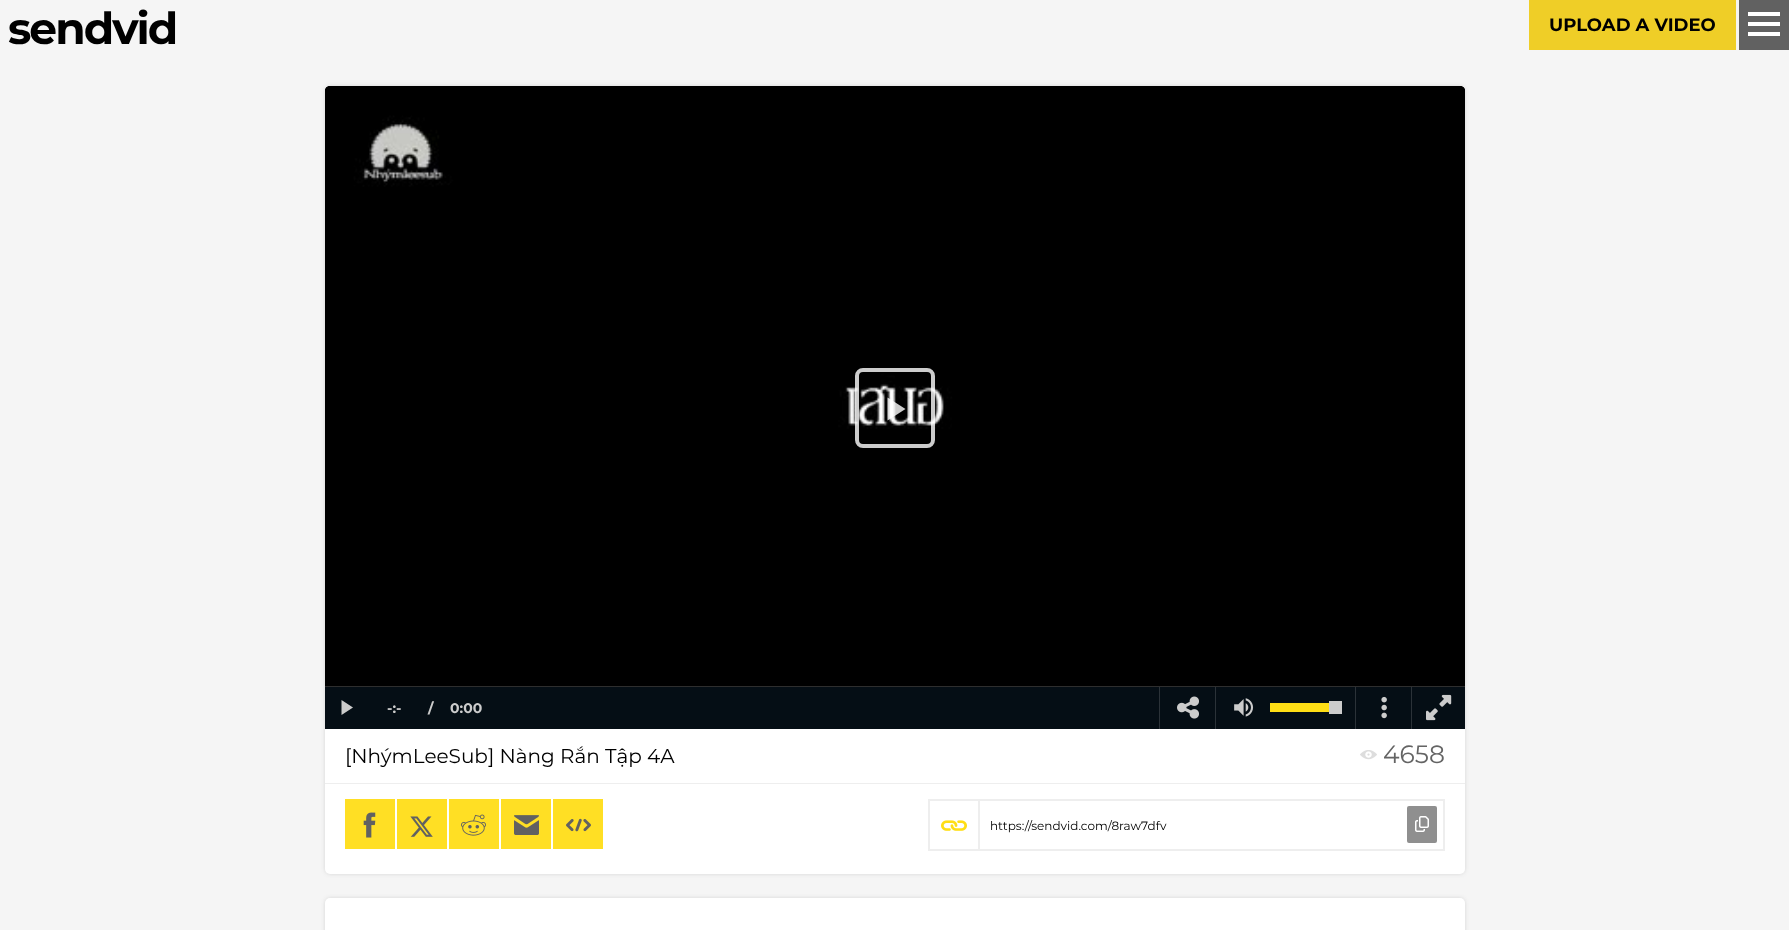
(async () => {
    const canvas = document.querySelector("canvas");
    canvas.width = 1789;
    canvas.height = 930;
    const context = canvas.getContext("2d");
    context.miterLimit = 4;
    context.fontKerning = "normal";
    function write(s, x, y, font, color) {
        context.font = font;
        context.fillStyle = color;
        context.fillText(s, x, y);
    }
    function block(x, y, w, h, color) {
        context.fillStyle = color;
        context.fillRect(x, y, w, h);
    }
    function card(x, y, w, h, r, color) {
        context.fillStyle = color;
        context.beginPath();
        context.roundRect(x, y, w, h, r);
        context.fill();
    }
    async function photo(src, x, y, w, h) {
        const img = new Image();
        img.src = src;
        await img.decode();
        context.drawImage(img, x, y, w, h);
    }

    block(0, 0, 1789, 930, "rgb(245, 245, 245)");
    context.letterSpacing = "-2px";
    write("sendvid", 8, 44, "bold 44px Montserrat", "rgb(0, 0, 0)");
    context.fillStyle = "rgba(44, 44, 44, 0.14)";
    context.filter = "blur(2px)";
    context.beginPath();
    context.roundRect(325, 86, 1140, 788, 5);
    context.fill();
    context.filter = "none";
    await photo("media/1.png", 325, 86, 1140, 5);
    context.fillStyle = "rgb(0, 0, 0)";
    context.beginPath();
    context.roundRect(325, 86, 1140, 643, [5, 5, 0, 0]);
    context.fill();
    await photo("media/2.png", 325, 87, 1140, 342);
    context.save();
    context.beginPath();
    context.moveTo(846, 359);
    context.lineTo(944, 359);
    context.lineTo(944, 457);
    context.lineTo(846, 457);
    context.closePath();
    context.moveTo(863, 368);
    context.lineTo(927, 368);
    context.bezierCurveTo(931.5, 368, 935, 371.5, 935, 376);
    context.lineTo(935, 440);
    context.bezierCurveTo(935, 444.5, 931.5, 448, 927, 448);
    context.lineTo(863, 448);
    context.bezierCurveTo(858.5, 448, 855, 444.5, 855, 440);
    context.lineTo(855, 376);
    context.bezierCurveTo(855, 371.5, 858.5, 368, 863, 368);
    context.closePath();
    context.clip("evenodd");
    context.fillStyle = "rgba(0, 0, 0, 0.35)";
    context.filter = "blur(2.5px)";
    context.beginPath();
    context.roundRect(855, 368, 80, 80, 8);
    context.fill();
    context.filter = "none";
    context.restore();
    context.beginPath();
    context.roundRect(857, 370, 76, 76, 6);
    context.strokeStyle = "rgba(255, 255, 255, 0.8)";
    context.lineWidth = 4;
    context.stroke();
    context.fillStyle = "rgba(255, 255, 255, 0.8)";
    context.beginPath();
    context.moveTo(887.5, 397.5);
    context.lineTo(887.5, 420.5);
    context.lineTo(905.5, 409);
    context.closePath();
    context.fill();
    block(325, 687, 1140, 42, "rgb(5, 14, 21)");
    block(325, 686, 1140, 1, "rgb(46, 46, 46)");
    context.fillStyle = "rgb(204, 204, 204)";
    context.beginPath();
    context.moveTo(341.5, 700);
    context.lineTo(341.5, 715);
    context.lineTo(353, 707.5);
    context.closePath();
    context.fill();
    context.letterSpacing = "0px";
    write("-:-", 387, 713, "bold 14px Montserrat", "rgb(204, 204, 204)");
    write("/", 428, 713, "bold 14px Montserrat", "rgb(204, 204, 204)");
    write("0:00", 450, 713, "bold 14px Montserrat", "rgb(204, 204, 204)");
    block(1159, 687, 1, 42, "rgb(43, 50, 56)");
    await photo("media/3.png", 1177, 696, 22, 23);
    block(1215, 687, 1, 42, "rgb(43, 50, 56)");
    await photo("media/4.png", 1234, 698, 20, 19);
    block(1270, 703, 59, 9, "rgb(255, 222, 21)");
    block(1329, 701, 13, 13, "rgb(204, 204, 204)");
    block(1355, 687, 1, 42, "rgb(43, 50, 56)");
    await photo("media/5.png", 1381, 696, 6, 23);
    block(1411, 687, 1, 42, "rgb(43, 50, 56)");
    await photo("media/6.png", 1426, 694, 26, 27);
    context.fillStyle = "rgb(255, 255, 255)";
    context.beginPath();
    context.roundRect(325, 729, 1140, 145, [0, 0, 5, 5]);
    context.fill();
    block(325, 783, 1140, 1, "rgb(238, 238, 238)");
    write("[NhýmLeeSub] Nàng Rắn Tập 4A", 345, 763, "20px Montserrat", "rgb(0, 0, 0)");
    await photo("media/7.png", 1360, 750, 17, 10);
    write("4658", 1383, 763, "25px Montserrat", "rgb(100, 100, 100)");
    block(345, 799, 50, 50, "rgb(255, 223, 36)");
    await photo("media/8.png", 363, 812, 13, 26);
    block(397, 799, 50, 50, "rgb(255, 223, 36)");
    await photo("media/9.png", 410, 816, 23, 21);
    block(449, 799, 50, 50, "rgb(255, 223, 36)");
    await photo("media/10.png", 461, 814, 25, 22);
    block(501, 799, 50, 50, "rgb(255, 223, 36)");
    await photo("media/11.png", 514, 815, 25, 20);
    block(553, 799, 50, 50, "rgb(255, 223, 36)");
    await photo("media/12.png", 566, 818, 25, 14);
    context.strokeStyle = "rgb(238, 238, 238)";
    context.lineWidth = 2;
    context.strokeRect(929, 800, 515, 50);
    block(978, 801, 2, 48, "rgb(238, 238, 238)");
    await photo("media/13.png", 941, 820, 26, 11);
    write("https://sendvid.com/8raw7dfv", 990, 830, "12px Montserrat", "rgb(0, 0, 0)");
    card(1407, 806, 30, 37, 2, "rgb(143, 143, 143)");
    await photo("media/14.png", 1415, 816, 14, 16);
    context.fillStyle = "rgba(44, 44, 44, 0.14)";
    context.filter = "blur(2px)";
    context.beginPath();
    context.roundRect(325, 898, 1140, 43, 5);
    context.fill();
    context.filter = "none";
    card(325, 898, 1140, 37, 5, "rgb(255, 255, 255)");
    block(1529, 0, 207, 50, "rgb(239, 206, 39)");
    write("UPLOAD A VIDEO", 1549, 31, "bold 18px Montserrat", "rgb(0, 0, 0)");
    block(1739, 0, 50, 50, "rgb(97, 97, 97)");
    block(1748, 12, 32, 4, "rgb(255, 255, 255)");
    block(1748, 22, 32, 4, "rgb(255, 255, 255)");
    block(1748, 32, 32, 4, "rgb(255, 255, 255)");
})();
